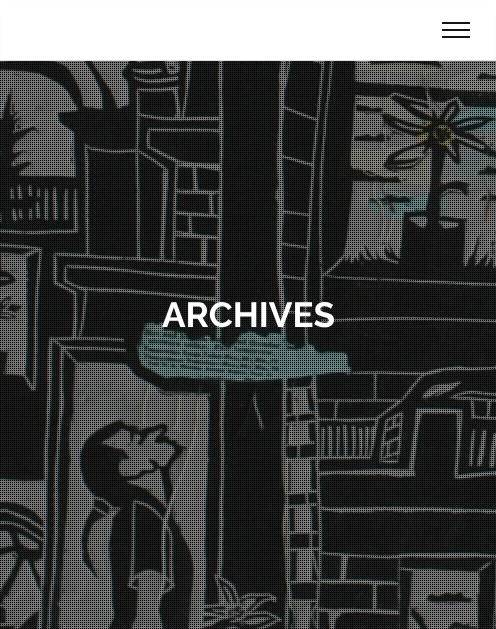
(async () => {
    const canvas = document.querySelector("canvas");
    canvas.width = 496;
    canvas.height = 629;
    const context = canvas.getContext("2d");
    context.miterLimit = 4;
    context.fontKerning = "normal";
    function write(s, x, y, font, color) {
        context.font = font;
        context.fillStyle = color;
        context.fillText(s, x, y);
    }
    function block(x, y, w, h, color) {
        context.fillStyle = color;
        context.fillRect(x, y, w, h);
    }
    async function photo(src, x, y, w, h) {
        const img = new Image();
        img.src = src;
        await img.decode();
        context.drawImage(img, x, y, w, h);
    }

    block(0, 0, 496, 629, "rgb(255, 255, 255)");
    await photo("media/1.png", 0, 61, 496, 568);
    await photo("media/2.png", 0, 61, 496, 568);
    context.fillStyle = "rgba(0, 0, 0, 0.1)";
    context.filter = "blur(2.5px)";
    context.beginPath();
    context.rect(4, 9, 488, 53);
    context.fill();
    context.filter = "none";
    block(1, 6, 494, 54, "rgb(255, 255, 255)");
    block(0, 60, 496, 1, "rgb(221, 221, 221)");
    block(442, 29, 28, 2, "rgb(21, 21, 21)");
    block(442, 22, 28, 2, "rgb(21, 21, 21)");
    block(442, 36, 28, 2, "rgb(21, 21, 21)");
    write("ARCHIVES", 162, 327, "bold 35px Raleway", "rgb(255, 255, 255)");
})();
